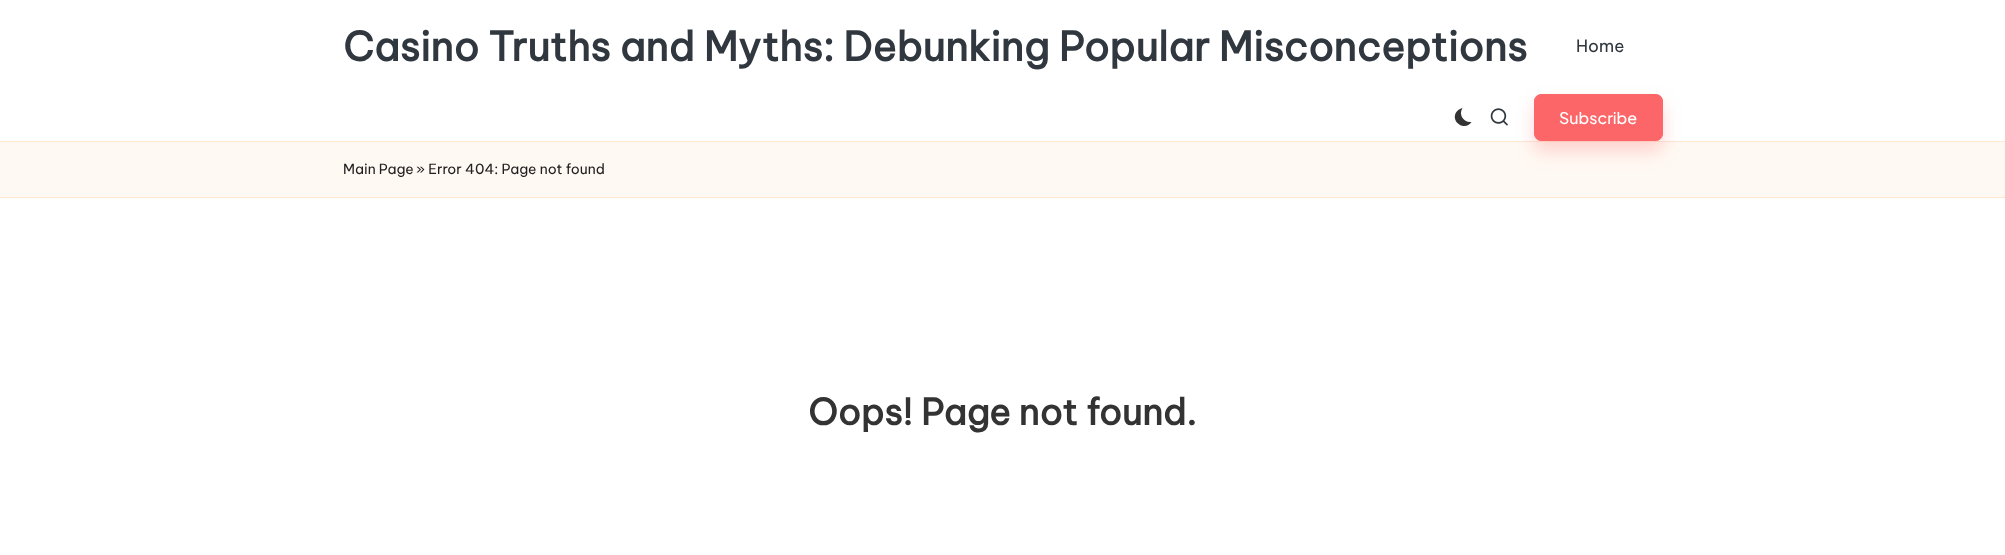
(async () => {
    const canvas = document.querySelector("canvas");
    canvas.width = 2005;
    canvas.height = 555;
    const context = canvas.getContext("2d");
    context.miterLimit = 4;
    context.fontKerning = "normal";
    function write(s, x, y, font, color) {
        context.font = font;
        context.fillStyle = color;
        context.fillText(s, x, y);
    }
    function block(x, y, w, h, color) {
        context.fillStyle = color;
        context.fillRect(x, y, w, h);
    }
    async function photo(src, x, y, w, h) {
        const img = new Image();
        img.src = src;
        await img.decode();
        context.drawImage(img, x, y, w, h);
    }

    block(0, 0, 2005, 555, "rgb(255, 255, 255)");
    write("Casino Truths and Myths: Debunking Popular Misconceptions", 343, 61, "bold 40px Be Vietnam Pro", "rgb(48, 55, 62)");
    write("Home", 1576, 52, "17px Be Vietnam Pro", "rgb(48, 55, 62)");
    context.fillStyle = "rgb(51, 51, 51)";
    context.beginPath();
    context.moveTo(1471.5, 122);
    context.bezierCurveTo(1464, 123, 1458, 115, 1462.5, 108);
    context.bezierCurveTo(1459.5, 108.5, 1457.5, 110.5, 1456, 112.5);
    context.bezierCurveTo(1450.5, 122.5, 1465.5, 131.5, 1471.5, 122);
    context.closePath();
    context.fill();
    await photo("media/1.png", 1490, 108, 18, 18);
    block(0, 142, 2005, 55, "rgb(255, 249, 243)");
    block(0, 141, 2005, 1, "rgb(255, 231, 210)");
    context.fillStyle = "rgba(252, 102, 104, 0.27)";
    context.filter = "blur(9px)";
    context.beginPath();
    context.roundRect(1534, 104, 129, 47, 7);
    context.fill();
    context.filter = "none";
    context.fillStyle = "rgb(252, 102, 104)";
    context.beginPath();
    context.roundRect(1534.5, 94.5, 128, 46, 6.5);
    context.fill();
    context.strokeStyle = "rgb(252, 102, 104)";
    context.stroke();
    write("Subscribe", 1559, 124, "500 16px Plus Jakarta Sans", "rgb(255, 255, 255)");
    block(0, 197, 2005, 1, "rgb(255, 231, 210)");
    write("Main Page", 343, 174, "14px Be Vietnam Pro", "rgb(33, 33, 33)");
    write("» Error 404: Page not found", 416, 174, "14px Be Vietnam Pro", "rgb(33, 33, 33)");
    write("Oops! Page not found.", 808, 425, "bold 36px Be Vietnam Pro", "rgb(51, 51, 51)");
})();
